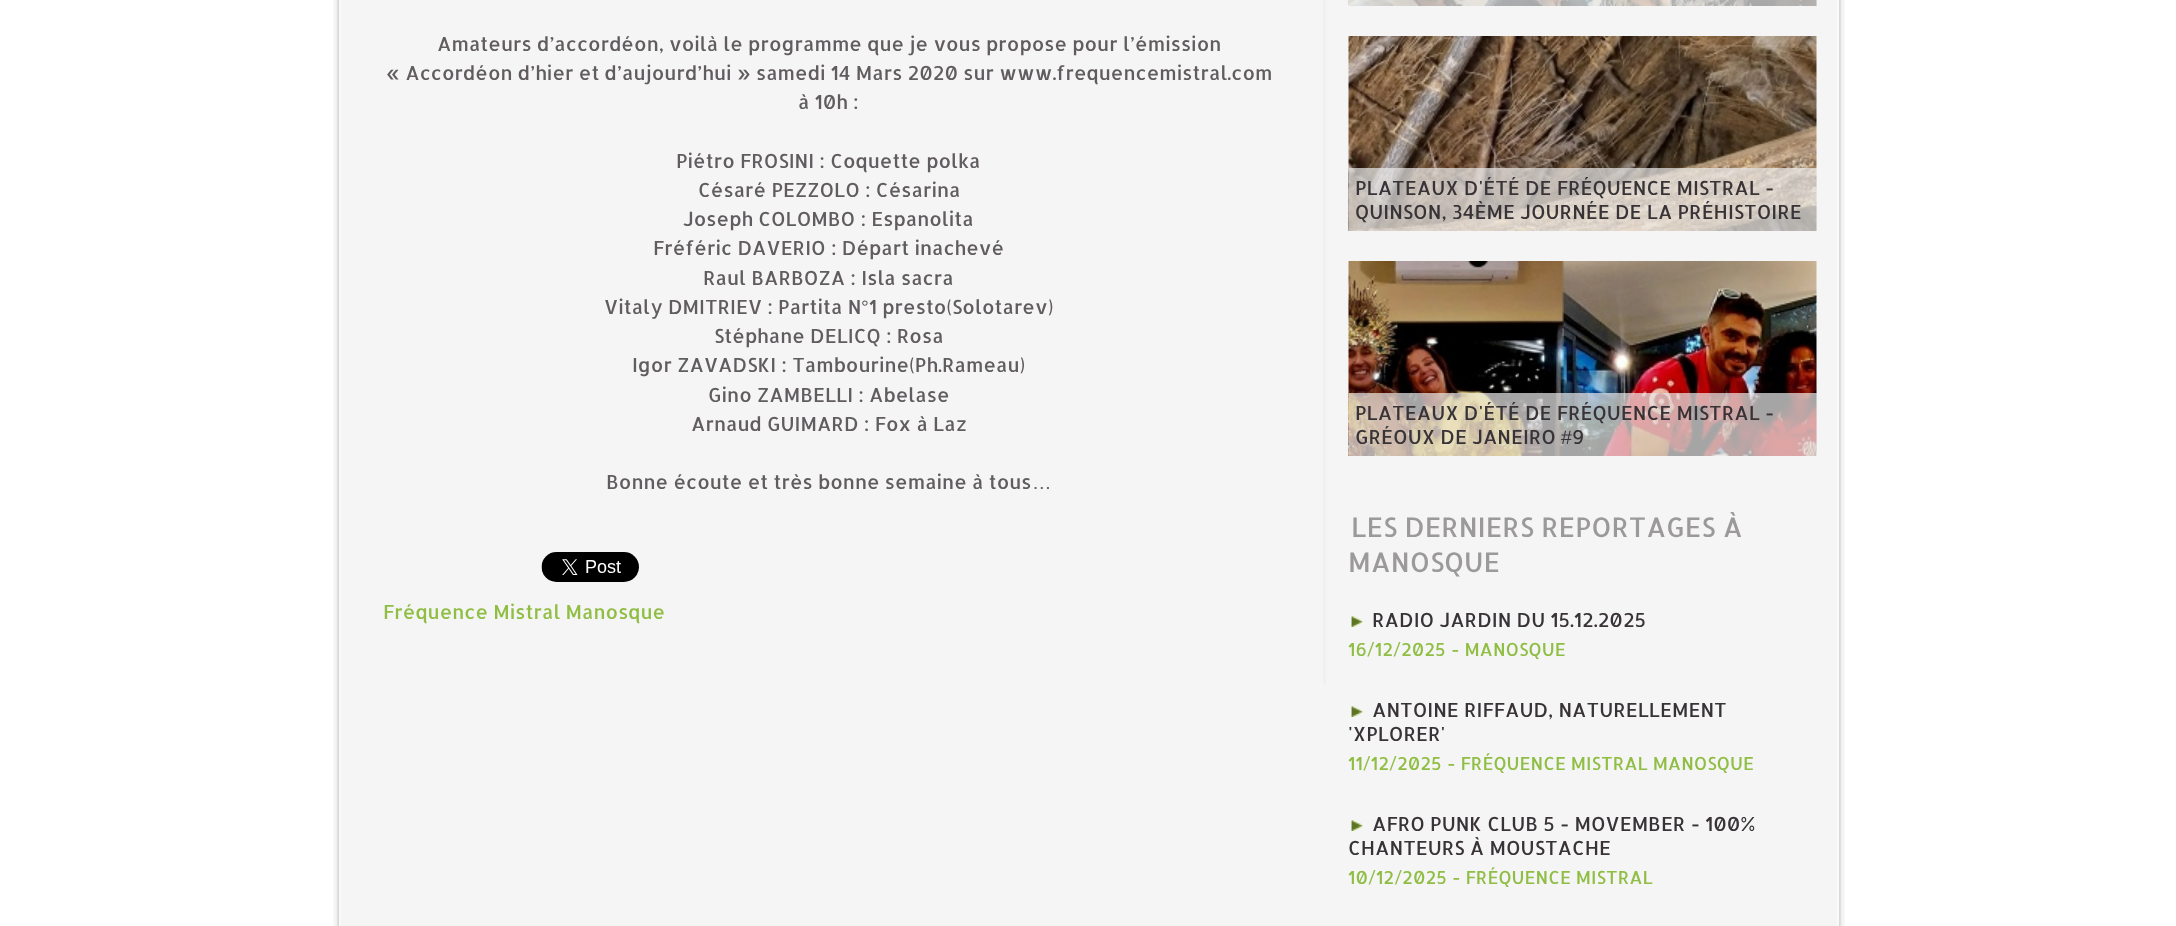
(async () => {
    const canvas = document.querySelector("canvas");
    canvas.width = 2176;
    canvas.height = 926;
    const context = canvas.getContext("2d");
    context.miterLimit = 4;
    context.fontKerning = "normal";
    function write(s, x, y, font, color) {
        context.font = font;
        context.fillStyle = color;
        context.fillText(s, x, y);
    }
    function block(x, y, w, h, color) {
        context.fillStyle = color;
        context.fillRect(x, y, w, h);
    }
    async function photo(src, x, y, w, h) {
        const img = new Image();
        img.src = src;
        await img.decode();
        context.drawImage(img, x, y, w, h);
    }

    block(0, 0, 2176, 926, "rgb(255, 255, 255)");
    await photo("media/1.png", 333, 0, 1512, 926);
    block(1323, 0, 3, 684, "rgb(240, 240, 240)");
    write("Amateurs d’accordéon, voilà le programme que je vous propose pour l’émission", 437, 51, "19.5px Allerta", "rgb(96, 92, 95)");
    write("« Accordéon d’hier et d’aujourd’hui » samedi 14 Mars 2020 sur www.frequencemistral.com", 386, 80, "19.5px Allerta", "rgb(96, 92, 95)");
    write("à 10h :", 798, 109, "19.5px Allerta", "rgb(96, 92, 95)");
    write("Piétro FROSINI : Coquette polka", 676, 168, "19.5px Allerta", "rgb(96, 92, 95)");
    write("Césaré PEZZOLO : Césarina", 698, 197, "19.5px Allerta", "rgb(96, 92, 95)");
    write("Joseph COLOMBO : Espanolita", 683, 226, "19.5px Allerta", "rgb(96, 92, 95)");
    write("Fréféric DAVERIO : Départ inachevé", 653, 255, "19.5px Allerta", "rgb(96, 92, 95)");
    write("Raul BARBOZA : Isla sacra", 703, 285, "19.5px Allerta", "rgb(96, 92, 95)");
    write("Vitaly DMITRIEV : Partita N", 604, 314, "19.5px Allerta", "rgb(96, 92, 95)");
    write("°", 861, 314, "19.5px Liberation Sans", "rgb(96, 92, 95)");
    write("1 presto(Solotarev)", 869, 314, "19.5px Allerta", "rgb(96, 92, 95)");
    write("Stéphane DELICQ : Rosa", 714, 343, "19.5px Allerta", "rgb(96, 92, 95)");
    write("Igor ZAVADSKI : Tambourine(Ph.Rameau)", 632, 372, "19.5px Allerta", "rgb(96, 92, 95)");
    write("Gino ZAMBELLI : Abelase", 708, 402, "19.5px Allerta", "rgb(96, 92, 95)");
    write("Arnaud GUIMARD : Fox à Laz", 691, 431, "19.5px Allerta", "rgb(96, 92, 95)");
    write("Bonne écoute et très bonne semaine à tous", 606, 489, "19.5px Allerta", "rgb(96, 92, 95)");
    write("…", 1032, 489, "19.5px Liberation Sans", "rgb(96, 92, 95)");
    await photo("media/2.png", 541, 552, 98, 30);
    write("Fréquence Mistral Manosque", 383, 619, "19.5px Allerta", "rgb(144, 190, 69)");
    await photo("media/3.png", 1348, 0, 469, 6);
    block(1349, 0, 468, 6, "rgba(235, 235, 235, 0.7)");
    await photo("media/4.png", 1348, 36, 469, 195);
    block(1349, 168, 468, 63, "rgba(235, 235, 235, 0.7)");
    write("PLATEAUX D'ÉTÉ DE FRÉQUENCE MISTRAL -", 1355, 195, "19.5px Allerta", "rgb(56, 51, 55)");
    write("QUINSON, 34ÈME JOURNÉE DE LA PRÉHISTOIRE", 1355, 219, "19.5px Allerta", "rgb(56, 51, 55)");
    await photo("media/5.png", 1348, 261, 469, 195);
    block(1349, 393, 468, 63, "rgba(235, 235, 235, 0.7)");
    write("PLATEAUX D'ÉTÉ DE FRÉQUENCE MISTRAL -", 1355, 420, "19.5px Allerta", "rgb(56, 51, 55)");
    write("GRÉOUX DE JANEIRO", 1355, 444, "19.5px Allerta", "rgb(56, 51, 55)");
    write("#", 1561, 444, "19.5px Liberation Sans", "rgb(56, 51, 55)");
    write("9", 1572, 444, "19.5px Allerta", "rgb(56, 51, 55)");
    write("LES DERNIERS REPORTAGES À", 1351, 537, "27px Allerta", "rgb(156, 153, 155)");
    write("MANOSQUE", 1348, 572, "27px Allerta", "rgb(156, 153, 155)");
    await photo("media/6.png", 1351, 616, 12, 11);
    write("RADIO JARDIN DU 15.12.2025", 1372, 627, "19.5px Allerta", "rgb(56, 51, 55)");
    write("16/12/2025", 1348, 656, "18px Allerta", "rgb(144, 190, 69)");
    write("- MANOSQUE", 1451, 656, "18px Allerta", "rgb(144, 190, 69)");
    await photo("media/6.png", 1351, 706, 12, 11);
    write("ANTOINE RIFFAUD, NATURELLEMENT", 1372, 717, "19.5px Allerta", "rgb(56, 51, 55)");
    write("'XPLORER'", 1348, 741, "19.5px Allerta", "rgb(56, 51, 55)");
    write("11/12/2025", 1348, 770, "18px Allerta", "rgb(144, 190, 69)");
    write("- FRÉQUENCE MISTRAL MANOSQUE", 1447, 770, "18px Allerta", "rgb(144, 190, 69)");
    await photo("media/6.png", 1351, 820, 12, 11);
    write("AFRO PUNK CLUB 5 - MOVEMBER - 100%", 1372, 831, "19.5px Allerta", "rgb(56, 51, 55)");
    write("CHANTEURS À MOUSTACHE", 1348, 855, "19.5px Allerta", "rgb(56, 51, 55)");
    write("10/12/2025", 1348, 884, "18px Allerta", "rgb(144, 190, 69)");
    write("- FRÉQUENCE MISTRAL", 1452, 884, "18px Allerta", "rgb(144, 190, 69)");
})();
